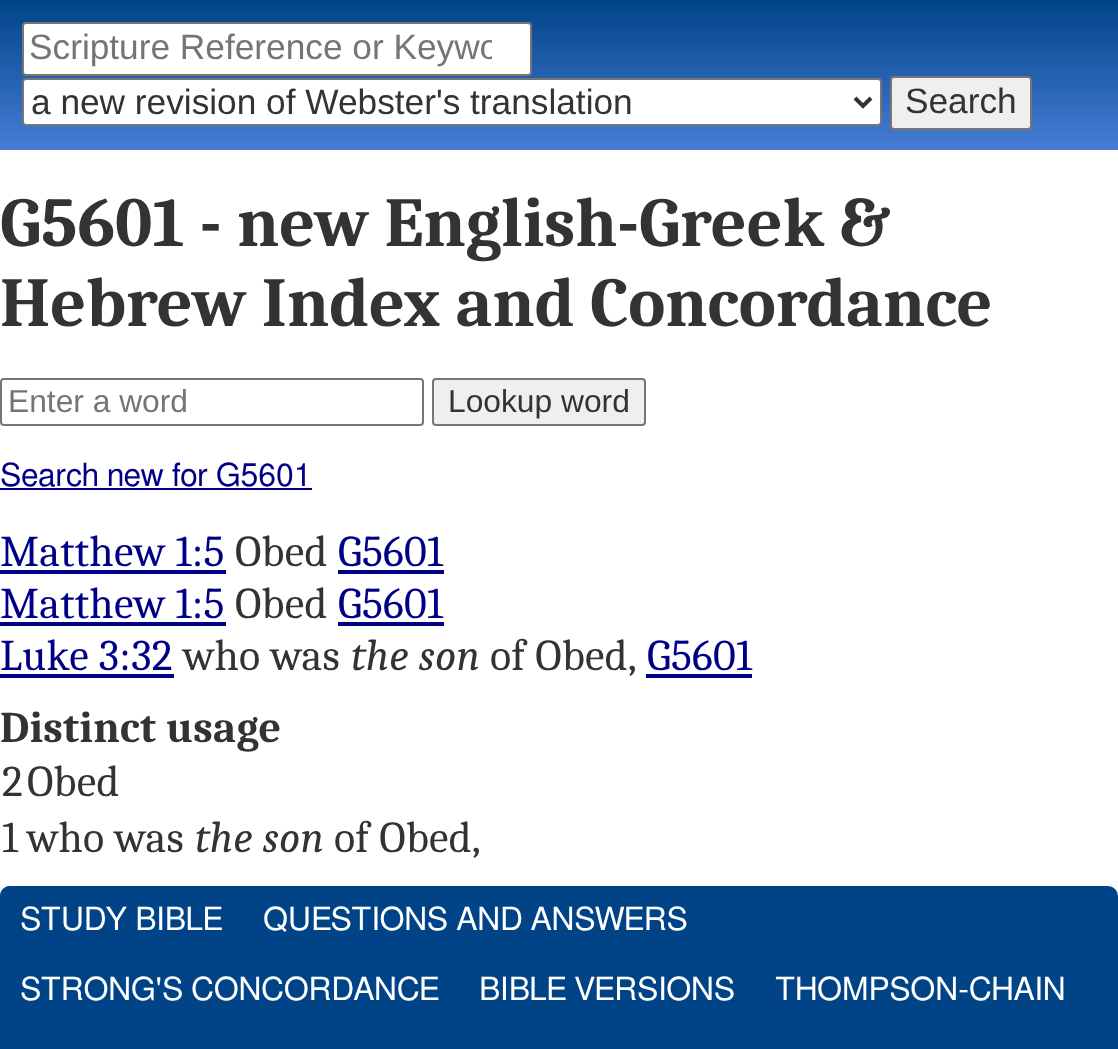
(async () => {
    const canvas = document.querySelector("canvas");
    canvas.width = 1118;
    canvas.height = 1049;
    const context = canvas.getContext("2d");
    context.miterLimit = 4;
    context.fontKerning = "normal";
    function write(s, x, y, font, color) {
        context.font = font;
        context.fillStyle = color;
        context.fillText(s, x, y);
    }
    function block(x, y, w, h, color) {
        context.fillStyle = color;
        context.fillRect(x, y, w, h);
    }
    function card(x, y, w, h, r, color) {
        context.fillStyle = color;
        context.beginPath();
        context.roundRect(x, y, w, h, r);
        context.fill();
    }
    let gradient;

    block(0, 0, 1118, 1049, "rgb(255, 255, 255)");
    gradient = context.createLinearGradient(559, 0, 559, 150);
    gradient.addColorStop(0, "rgb(0, 68, 135)");
    gradient.addColorStop(1, "rgb(71, 125, 214)");
    context.fillStyle = gradient;
    context.fillRect(0, 0, 1118, 150);
    context.fillStyle = "rgb(255, 255, 255)";
    context.beginPath();
    context.roundRect(23, 23, 508, 52, 3);
    context.fill();
    context.strokeStyle = "rgb(118, 118, 118)";
    context.lineWidth = 2;
    context.stroke();
    context.save();
    context.beginPath();
    context.rect(30, 28, 462, 42);
    context.clip();
    write("Scripture Reference or Keywo", 29, 59, "35.25px Liberation Sans", "rgb(117, 117, 117)");
    context.restore();
    context.beginPath();
    context.roundRect(23, 79, 858, 46, 3);
    context.fill();
    context.stroke();
    context.beginPath();
    context.moveTo(855, 98);
    context.lineTo(863, 106);
    context.lineTo(871, 98);
    context.strokeStyle = "rgb(51, 51, 51)";
    context.lineWidth = 4;
    context.stroke();
    write("a new revision of Webster's translation", 31, 114, "35.25px Liberation Sans", "rgb(51, 51, 51)");
    context.fillStyle = "rgb(239, 239, 239)";
    context.beginPath();
    context.roundRect(891, 77, 140, 52, 3);
    context.fill();
    context.strokeStyle = "rgb(118, 118, 118)";
    context.lineWidth = 2;
    context.stroke();
    write("Search", 905, 113, "35.25px Liberation Sans", "rgb(51, 51, 51)");
    write("G5601 - new English-Greek &", 0, 246, "bold 70px Caladea", "rgb(51, 51, 51)");
    write("Hebrew Index and Concordance", 0, 326, "bold 70px Caladea", "rgb(51, 51, 51)");
    context.beginPath();
    context.roundRect(1, 379, 422, 46, 3);
    context.stroke();
    write("Enter a word", 8, 412, "31.75px Liberation Sans", "rgb(117, 117, 117)");
    context.fillStyle = "rgb(239, 239, 239)";
    context.beginPath();
    context.roundRect(433, 379, 212, 46, 3);
    context.fill();
    context.stroke();
    write("Lookup word", 448, 412, "31.75px Liberation Sans", "rgb(51, 51, 51)");
    write("Search new for G5601", 0, 486, "32px FreeSans", "rgb(0, 0, 135)");
    block(0, 488, 312, 2, "rgb(0, 0, 135)");
    context.letterSpacing = "0.25px";
    write("Matthew 1:5", 0, 566, "44px Caladea", "rgb(0, 0, 135)");
    block(0, 570, 226, 4, "rgb(0, 0, 135)");
    write("Obed", 235, 566, "44px Caladea", "rgb(51, 51, 51)");
    write("G5601", 338, 566, "44px Caladea", "rgb(0, 0, 135)");
    block(338, 570, 106, 4, "rgb(0, 0, 135)");
    write("Matthew 1:5", 0, 618, "44px Caladea", "rgb(0, 0, 135)");
    block(0, 622, 226, 4, "rgb(0, 0, 135)");
    write("Obed", 235, 618, "44px Caladea", "rgb(51, 51, 51)");
    write("G5601", 338, 618, "44px Caladea", "rgb(0, 0, 135)");
    block(338, 622, 106, 4, "rgb(0, 0, 135)");
    write("Luke 3:32", 0, 670, "44px Caladea", "rgb(0, 0, 135)");
    block(0, 674, 174, 4, "rgb(0, 0, 135)");
    write("who was", 183, 670, "44px Caladea", "rgb(51, 51, 51)");
    write("the son", 351, 670, "italic 44px Caladea", "rgb(51, 51, 51)");
    write("of Obed,", 490, 670, "44px Caladea", "rgb(51, 51, 51)");
    write("G5601", 647, 670, "44px Caladea", "rgb(0, 0, 135)");
    block(646, 674, 106, 4, "rgb(0, 0, 135)");
    write("Distinct usage", 0, 742, "bold 44px Caladea", "rgb(51, 51, 51)");
    write("2", 2, 796, "44px Caladea", "rgb(51, 51, 51)");
    write("Obed", 27, 796, "44px Caladea", "rgb(51, 51, 51)");
    write("1", 2, 852, "44px Caladea", "rgb(51, 51, 51)");
    write("who was", 27, 852, "44px Caladea", "rgb(51, 51, 51)");
    write("the son", 195, 852, "italic 44px Caladea", "rgb(51, 51, 51)");
    write("of Obed,", 334, 852, "44px Caladea", "rgb(51, 51, 51)");
    card(0, 886, 1118, 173, 10, "rgb(0, 68, 135)");
    card(0, 886, 242, 70, 10, "rgb(0, 68, 135)");
    context.letterSpacing = "0px";
    write("STUDY BIBLE", 20, 930, "32px FreeSans", "rgb(255, 255, 255)");
    write("QUESTIONS AND ANSWERS", 263, 930, "32px FreeSans", "rgb(255, 255, 255)");
    write("STRONG'S CONCORDANCE", 20, 1000, "32px FreeSans", "rgb(255, 255, 255)");
    write("BIBLE VERSIONS", 479, 1000, "32px FreeSans", "rgb(255, 255, 255)");
    write("THOMPSON-CHAIN", 775, 1000, "32px FreeSans", "rgb(255, 255, 255)");
})();
